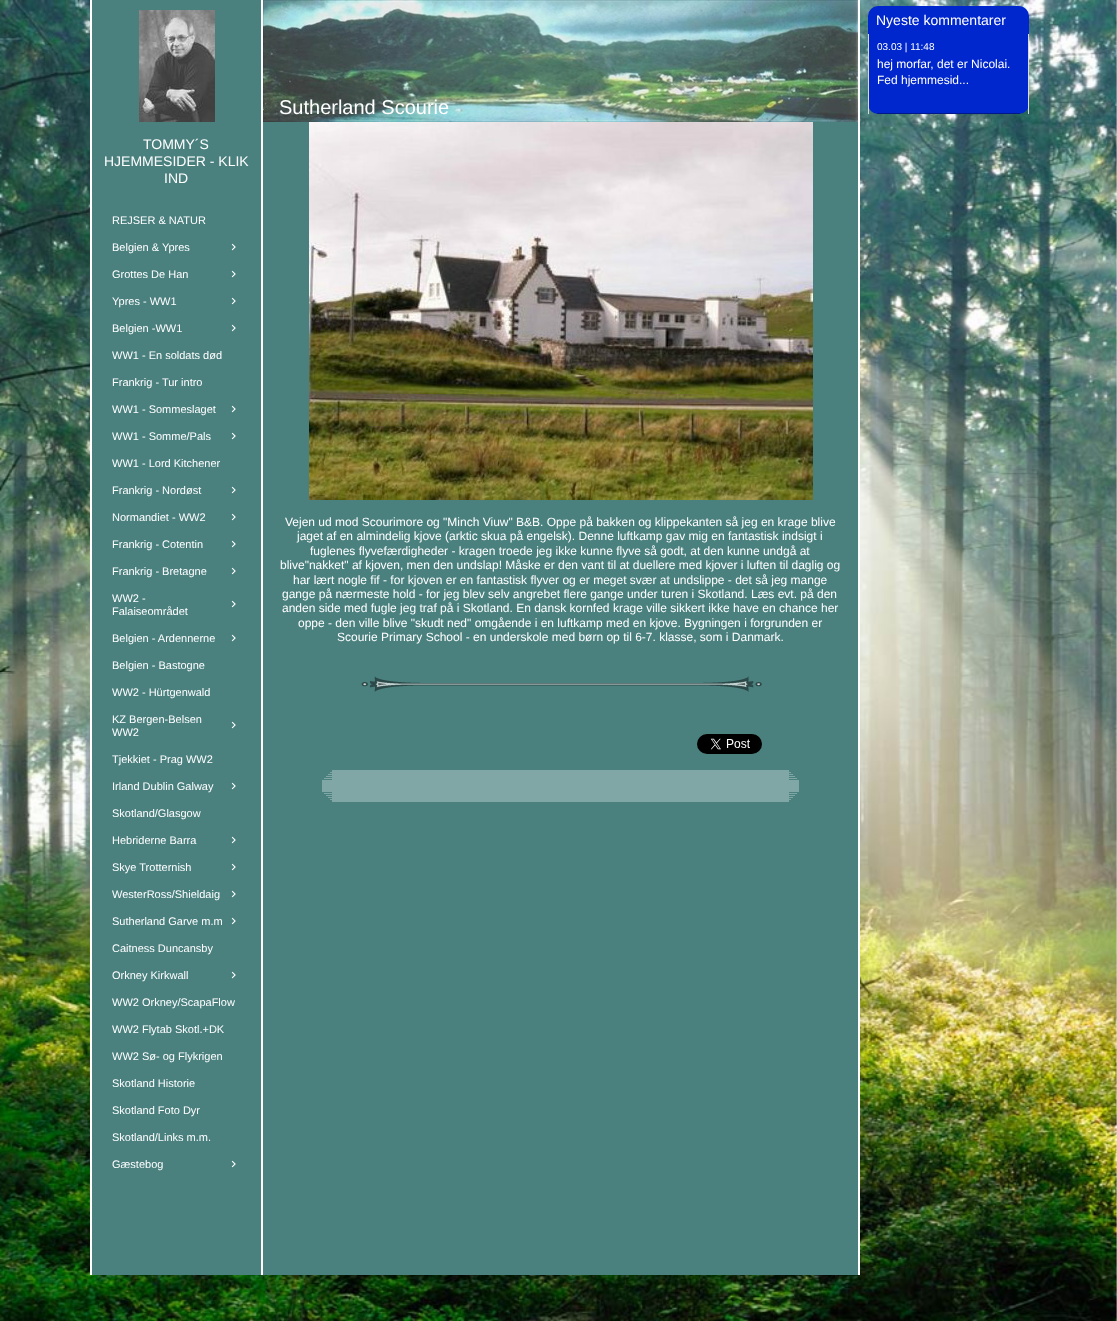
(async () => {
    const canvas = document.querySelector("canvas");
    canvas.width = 1117;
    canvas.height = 1321;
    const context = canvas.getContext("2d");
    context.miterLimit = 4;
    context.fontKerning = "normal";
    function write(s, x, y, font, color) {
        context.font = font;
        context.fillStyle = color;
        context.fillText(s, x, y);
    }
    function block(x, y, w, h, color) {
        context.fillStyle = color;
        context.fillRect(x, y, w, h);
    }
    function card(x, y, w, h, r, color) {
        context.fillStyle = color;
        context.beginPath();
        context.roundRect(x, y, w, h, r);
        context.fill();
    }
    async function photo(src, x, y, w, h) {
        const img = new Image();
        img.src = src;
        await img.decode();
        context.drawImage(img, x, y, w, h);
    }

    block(0, 0, 1117, 1321, "rgb(255, 255, 255)");
    await photo("media/1.png", 0, 0, 1117, 1321);
    card(868, 6, 161, 108, 10, "rgb(0, 39, 205)");
    write("Nyeste kommentarer", 876, 25, "14px Liberation Sans", "rgb(255, 255, 255)");
    block(1028, 34, 1, 80, "rgb(218, 218, 218)");
    block(868, 34, 1, 80, "rgb(218, 218, 218)");
    write("03.03 | 11:48", 877, 50, "10px Liberation Sans", "rgb(255, 255, 255)");
    write("hej morfar, det er Nicolai.", 877, 68, "12px Liberation Sans", "rgb(255, 255, 255)");
    write("Fed hjemmesid...", 877, 84, "12px Liberation Sans", "rgb(255, 255, 255)");
    await photo("media/2.png", 877, 113, 143, 1);
    block(90, 0, 770, 1275, "rgb(255, 255, 255)");
    block(92, 0, 169, 1275, "rgb(74, 129, 127)");
    await photo("media/3.png", 139, 10, 76, 112);
    write("TOMMY´S", 143, 149, "14px Liberation Sans", "rgb(255, 255, 255)");
    write("HJEMMESIDER - KLIK", 104, 166, "14px Liberation Sans", "rgb(255, 255, 255)");
    write("IND", 164, 183, "14px Liberation Sans", "rgb(255, 255, 255)");
    block(263, 122, 595, 1153, "rgb(74, 129, 127)");
    await photo("media/4.png", 263, 0, 595, 122);
    write("Sutherland Scourie", 279, 114, "20px Liberation Sans", "rgb(255, 255, 255)");
    await photo("media/5.png", 309, 122, 504, 378);
    write("Vejen ud mod Scourimore og \"Minch Viuw\" B&B. Oppe på bakken og klippekanten så jeg en krage blive", 285, 526, "12px Liberation Sans", "rgb(255, 255, 255)");
    write("jaget af en almindelig kjove (arktic skua på engelsk). Denne luftkamp gav mig en fantastisk indsigt i", 297, 540, "12px Liberation Sans", "rgb(255, 255, 255)");
    write("fuglenes flyvefærdigheder - kragen troede jeg ikke kunne flyve så godt, at den kunne undgå at", 310, 555, "12px Liberation Sans", "rgb(255, 255, 255)");
    write("blive\"nakket\" af kjoven, men den undslap! Måske er den vant til at duellere med kjover i luften til daglig og", 280, 569, "12px Liberation Sans", "rgb(255, 255, 255)");
    write("har lært nogle fif - for kjoven er en fantastisk flyver og er meget svær at undslippe - det så jeg mange", 293, 584, "12px Liberation Sans", "rgb(255, 255, 255)");
    write("gange på nærmeste hold - for jeg blev selv angrebet flere gange under turen i Skotland. Læs evt. på den", 282, 598, "12px Liberation Sans", "rgb(255, 255, 255)");
    write("anden side med fugle jeg traf på i Skotland. En dansk kornfed krage ville sikkert ikke have en chance her", 282, 612, "12px Liberation Sans", "rgb(255, 255, 255)");
    write("oppe - den ville blive \"skudt ned\" omgående i en luftkamp med en kjove. Bygningen i forgrunden er", 298, 627, "12px Liberation Sans", "rgb(255, 255, 255)");
    write("Scourie Primary School - en underskole med børn op til 6-7. klasse, som i Danmark.", 337, 641, "12px Liberation Sans", "rgb(255, 255, 255)");
    await photo("media/6.png", 361, 676, 401, 16);
    await photo("media/7.png", 697, 734, 65, 20);
    block(322, 770, 477, 32, "rgb(128, 167, 165)");
    block(789, 770, 10, 2, "rgb(74, 129, 127)");
    block(322, 770, 10, 2, "rgb(74, 129, 127)");
    block(791, 772, 8, 1, "rgb(74, 129, 127)");
    block(322, 772, 8, 1, "rgb(74, 129, 127)");
    block(789, 773, 10, 1, "rgb(74, 129, 127)");
    block(322, 773, 10, 1, "rgb(74, 129, 127)");
    block(793, 774, 6, 1, "rgb(74, 129, 127)");
    block(322, 774, 6, 1, "rgb(74, 129, 127)");
    block(789, 775, 10, 1, "rgb(74, 129, 127)");
    block(322, 775, 10, 1, "rgb(74, 129, 127)");
    block(795, 776, 4, 1, "rgb(74, 129, 127)");
    block(322, 776, 4, 1, "rgb(74, 129, 127)");
    block(789, 777, 10, 1, "rgb(74, 129, 127)");
    block(322, 777, 10, 1, "rgb(74, 129, 127)");
    block(797, 778, 2, 1, "rgb(74, 129, 127)");
    block(322, 778, 2, 1, "rgb(74, 129, 127)");
    block(789, 779, 10, 1, "rgb(74, 129, 127)");
    block(322, 779, 10, 1, "rgb(74, 129, 127)");
    block(789, 792, 10, 1, "rgb(74, 129, 127)");
    block(322, 792, 10, 1, "rgb(74, 129, 127)");
    block(797, 793, 2, 1, "rgb(74, 129, 127)");
    block(322, 793, 2, 1, "rgb(74, 129, 127)");
    block(789, 794, 10, 1, "rgb(74, 129, 127)");
    block(322, 794, 10, 1, "rgb(74, 129, 127)");
    block(795, 795, 4, 1, "rgb(74, 129, 127)");
    block(322, 795, 4, 1, "rgb(74, 129, 127)");
    block(789, 796, 10, 1, "rgb(74, 129, 127)");
    block(322, 796, 10, 1, "rgb(74, 129, 127)");
    block(793, 797, 6, 1, "rgb(74, 129, 127)");
    block(322, 797, 6, 1, "rgb(74, 129, 127)");
    block(789, 798, 10, 1, "rgb(74, 129, 127)");
    block(322, 798, 10, 1, "rgb(74, 129, 127)");
    block(791, 799, 8, 1, "rgb(74, 129, 127)");
    block(322, 799, 8, 1, "rgb(74, 129, 127)");
    block(789, 800, 10, 2, "rgb(74, 129, 127)");
    block(322, 800, 10, 2, "rgb(74, 129, 127)");
    write("REJSER & NATUR", 112, 224, "11px Liberation Sans", "rgb(255, 255, 255)");
    write("Belgien & Ypres", 112, 251, "11px Liberation Sans", "rgb(255, 255, 255)");
    await photo("media/8.png", 231, 243, 5, 8);
    write("Grottes De Han", 112, 278, "11px Liberation Sans", "rgb(255, 255, 255)");
    await photo("media/8.png", 231, 270, 5, 8);
    write("Ypres - WW1", 112, 305, "11px Liberation Sans", "rgb(255, 255, 255)");
    await photo("media/8.png", 231, 297, 5, 8);
    write("Belgien -WW1", 112, 332, "11px Liberation Sans", "rgb(255, 255, 255)");
    await photo("media/8.png", 231, 324, 5, 8);
    write("WW1 - En soldats død", 112, 359, "11px Liberation Sans", "rgb(255, 255, 255)");
    write("Frankrig - Tur intro", 112, 386, "11px Liberation Sans", "rgb(255, 255, 255)");
    write("WW1 - Sommeslaget", 112, 413, "11px Liberation Sans", "rgb(255, 255, 255)");
    await photo("media/8.png", 231, 405, 5, 8);
    write("WW1 - Somme/Pals", 112, 440, "11px Liberation Sans", "rgb(255, 255, 255)");
    await photo("media/8.png", 231, 432, 5, 8);
    write("WW1 - Lord Kitchener", 112, 467, "11px Liberation Sans", "rgb(255, 255, 255)");
    write("Frankrig - Nordøst", 112, 494, "11px Liberation Sans", "rgb(255, 255, 255)");
    await photo("media/8.png", 231, 486, 5, 8);
    write("Normandiet - WW2", 112, 521, "11px Liberation Sans", "rgb(255, 255, 255)");
    await photo("media/8.png", 231, 513, 5, 8);
    write("Frankrig - Cotentin", 112, 548, "11px Liberation Sans", "rgb(255, 255, 255)");
    await photo("media/8.png", 231, 540, 5, 8);
    write("Frankrig - Bretagne", 112, 575, "11px Liberation Sans", "rgb(255, 255, 255)");
    await photo("media/8.png", 231, 567, 5, 8);
    write("WW2 -", 112, 602, "11px Liberation Sans", "rgb(255, 255, 255)");
    write("Falaiseområdet", 112, 615, "11px Liberation Sans", "rgb(255, 255, 255)");
    await photo("media/8.png", 231, 600, 5, 8);
    write("Belgien - Ardennerne", 112, 642, "11px Liberation Sans", "rgb(255, 255, 255)");
    await photo("media/8.png", 231, 634, 5, 8);
    write("Belgien - Bastogne", 112, 669, "11px Liberation Sans", "rgb(255, 255, 255)");
    write("WW2 - Hürtgenwald", 112, 696, "11px Liberation Sans", "rgb(255, 255, 255)");
    write("KZ Bergen-Belsen", 112, 723, "11px Liberation Sans", "rgb(255, 255, 255)");
    write("WW2", 112, 736, "11px Liberation Sans", "rgb(255, 255, 255)");
    await photo("media/8.png", 231, 721, 5, 8);
    write("Tjekkiet - Prag WW2", 112, 763, "11px Liberation Sans", "rgb(255, 255, 255)");
    write("Irland Dublin Galway", 112, 790, "11px Liberation Sans", "rgb(255, 255, 255)");
    await photo("media/8.png", 231, 782, 5, 8);
    write("Skotland/Glasgow", 112, 817, "11px Liberation Sans", "rgb(255, 255, 255)");
    write("Hebriderne Barra", 112, 844, "11px Liberation Sans", "rgb(255, 255, 255)");
    await photo("media/8.png", 231, 836, 5, 8);
    write("Skye Trotternish", 112, 871, "11px Liberation Sans", "rgb(255, 255, 255)");
    await photo("media/8.png", 231, 863, 5, 8);
    write("WesterRoss/Shieldaig", 112, 898, "11px Liberation Sans", "rgb(255, 255, 255)");
    await photo("media/8.png", 231, 890, 5, 8);
    write("Sutherland Garve m.m", 112, 925, "11px Liberation Sans", "rgb(255, 255, 255)");
    await photo("media/8.png", 231, 917, 5, 8);
    write("Caitness Duncansby", 112, 952, "11px Liberation Sans", "rgb(255, 255, 255)");
    write("Orkney Kirkwall", 112, 979, "11px Liberation Sans", "rgb(255, 255, 255)");
    await photo("media/8.png", 231, 971, 5, 8);
    write("WW2 Orkney/ScapaFlow", 112, 1006, "11px Liberation Sans", "rgb(255, 255, 255)");
    write("WW2 Flytab Skotl.+DK", 112, 1033, "11px Liberation Sans", "rgb(255, 255, 255)");
    write("WW2 Sø- og Flykrigen", 112, 1060, "11px Liberation Sans", "rgb(255, 255, 255)");
    write("Skotland Historie", 112, 1087, "11px Liberation Sans", "rgb(255, 255, 255)");
    write("Skotland Foto Dyr", 112, 1114, "11px Liberation Sans", "rgb(255, 255, 255)");
    write("Skotland/Links m.m.", 112, 1141, "11px Liberation Sans", "rgb(255, 255, 255)");
    write("Gæstebog", 112, 1168, "11px Liberation Sans", "rgb(255, 255, 255)");
    await photo("media/8.png", 231, 1160, 5, 8);
})();
